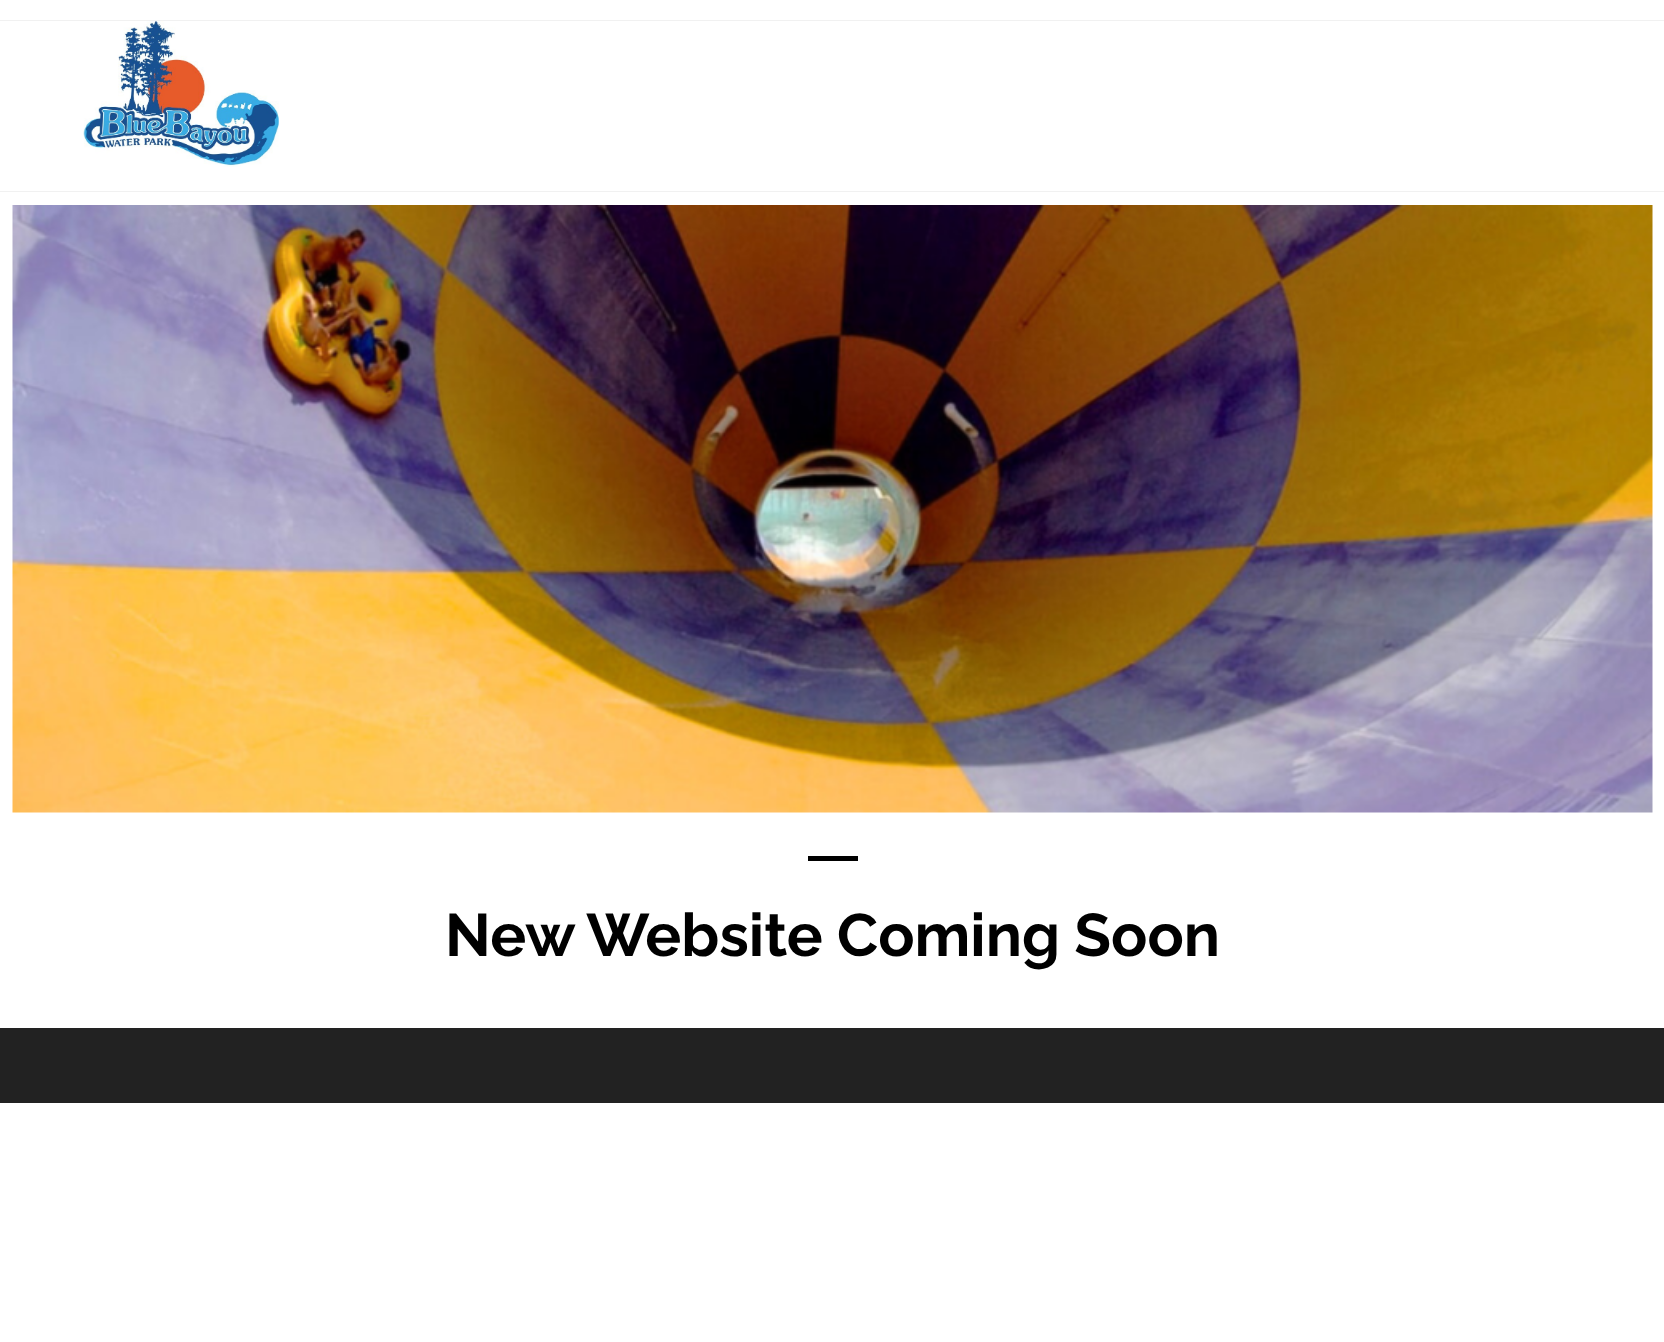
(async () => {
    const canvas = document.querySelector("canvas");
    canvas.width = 1664;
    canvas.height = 1342;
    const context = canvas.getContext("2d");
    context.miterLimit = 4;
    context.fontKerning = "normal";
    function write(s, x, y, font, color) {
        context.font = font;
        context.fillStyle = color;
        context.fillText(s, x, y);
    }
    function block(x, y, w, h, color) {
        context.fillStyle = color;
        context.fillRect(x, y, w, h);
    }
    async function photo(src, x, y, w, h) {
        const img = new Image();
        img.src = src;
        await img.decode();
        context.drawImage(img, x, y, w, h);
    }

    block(0, 0, 1664, 1342, "rgb(255, 255, 255)");
    block(0, 20, 1664, 1, "rgb(241, 241, 241)");
    block(0, 191, 1664, 1, "rgb(241, 241, 241)");
    await photo("media/1.png", 83, 21, 196, 146);
    await photo("media/2.png", 12, 205, 1641, 608);
    block(808, 856, 50, 5, "rgb(0, 0, 0)");
    write("New Website Coming Soon", 445, 956, "bold 60px Raleway", "rgb(0, 0, 0)");
    block(0, 1028, 1664, 75, "rgb(34, 34, 34)");
})();
